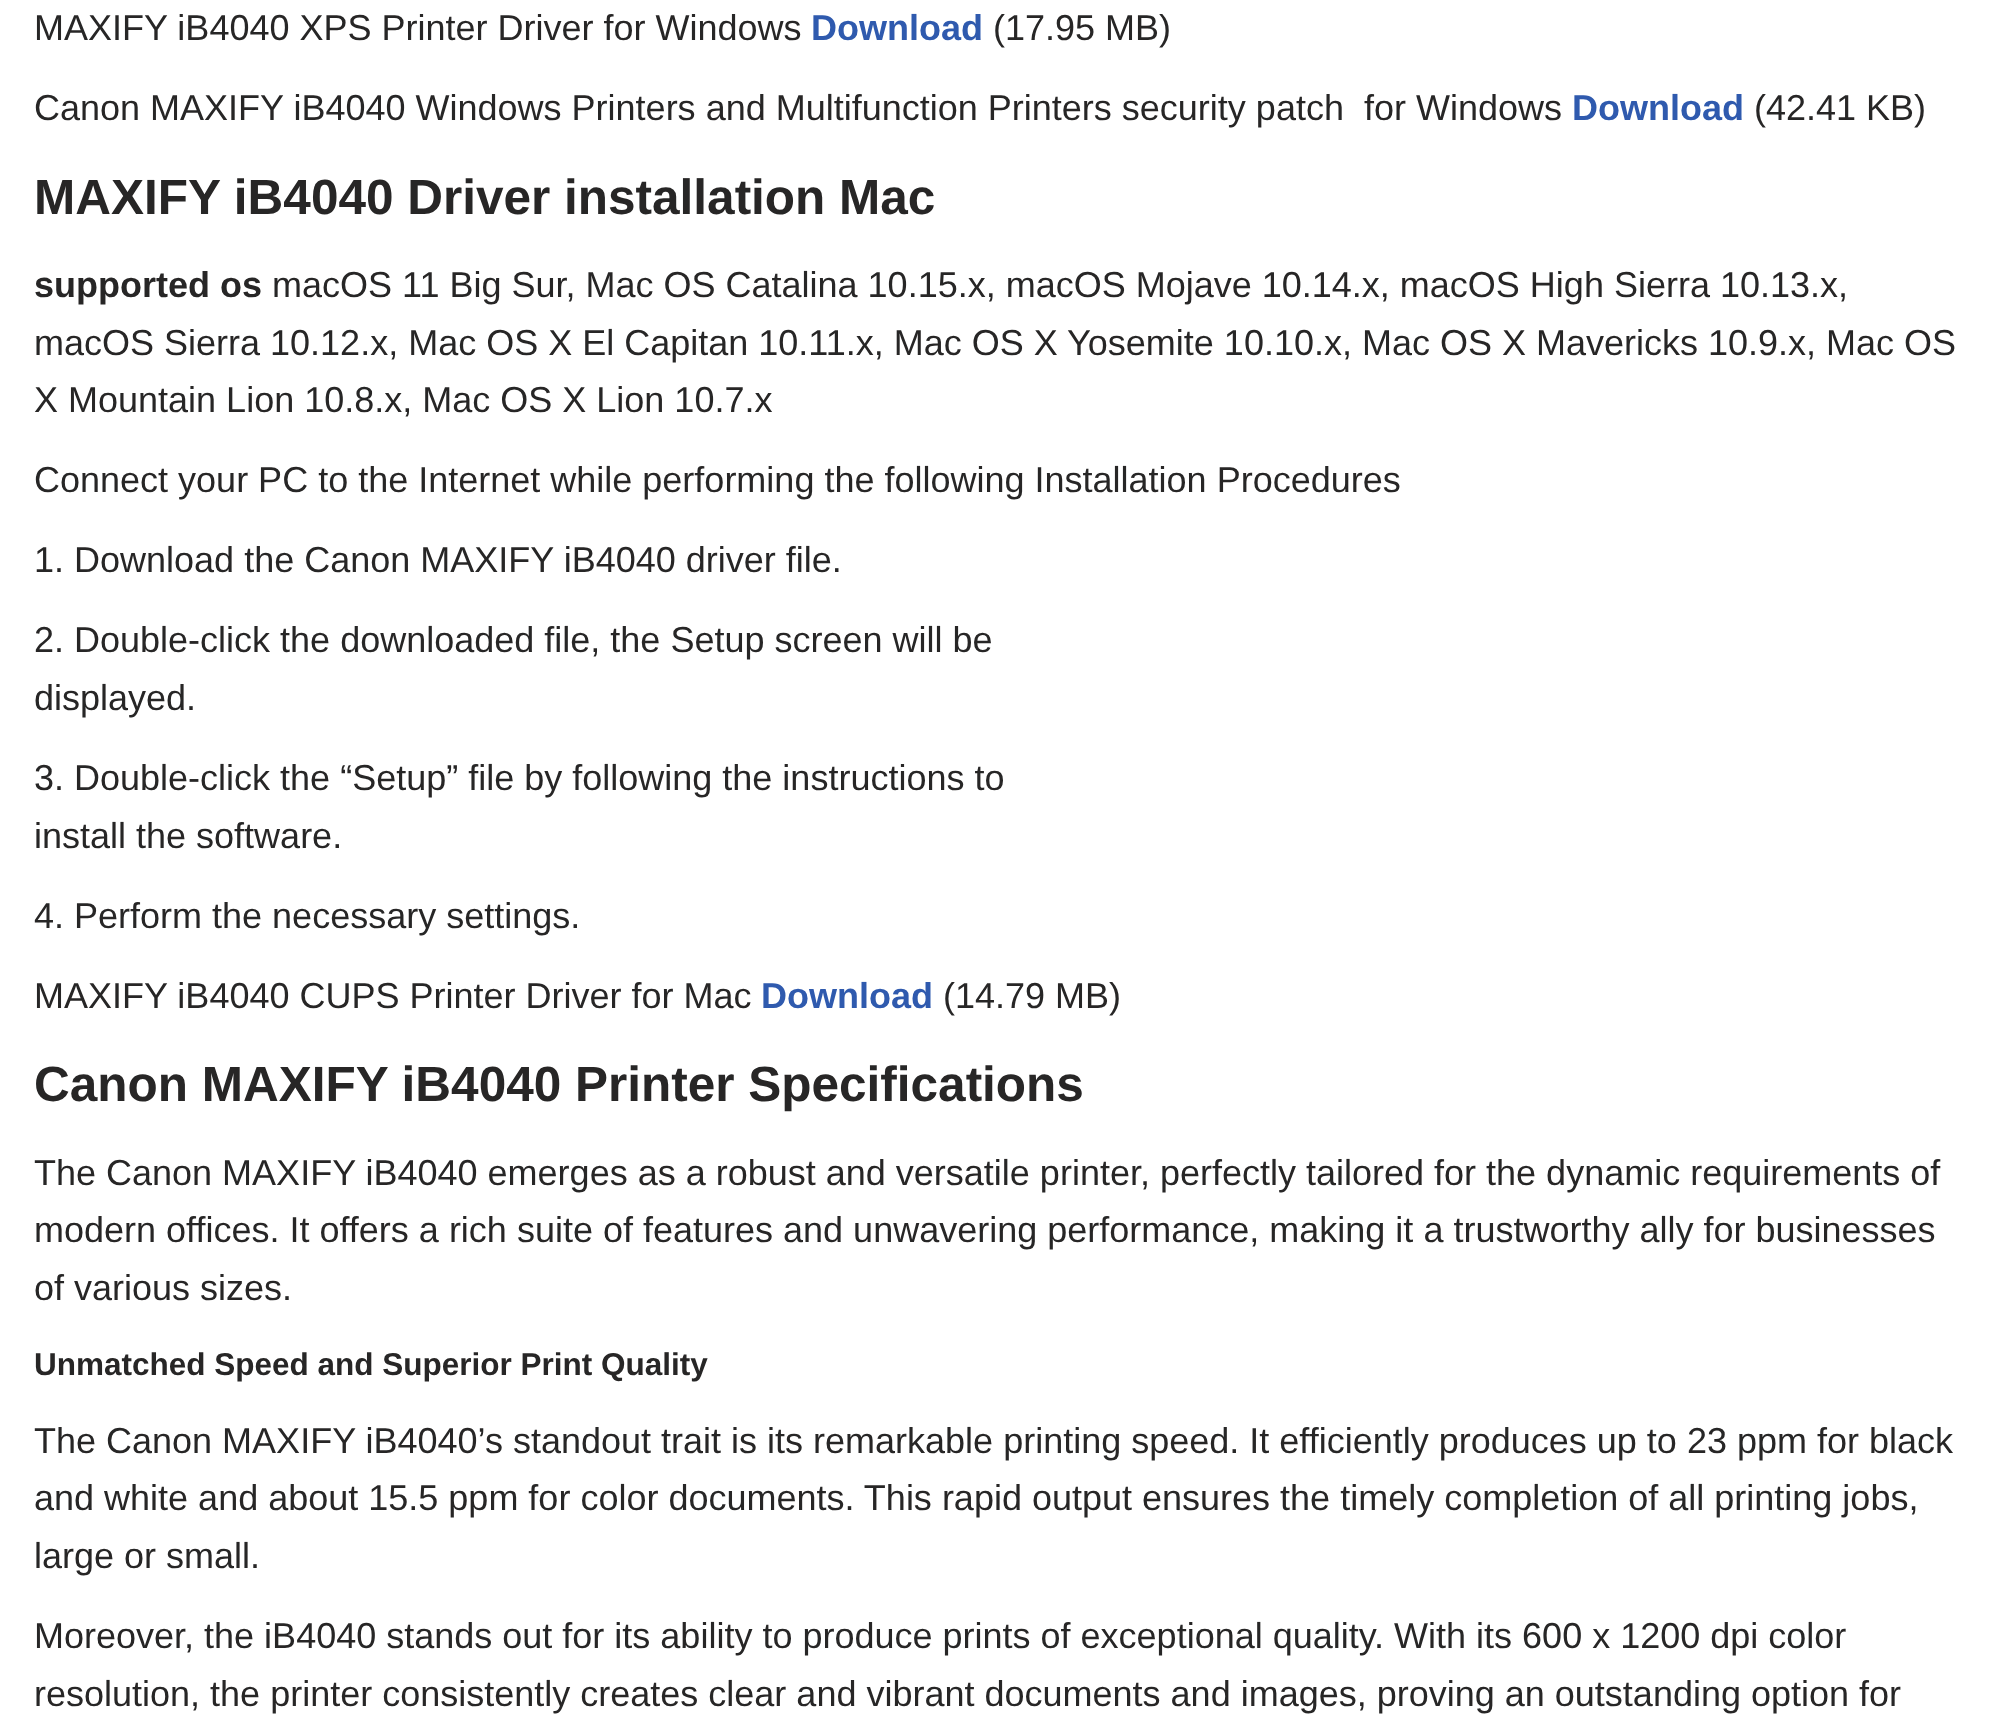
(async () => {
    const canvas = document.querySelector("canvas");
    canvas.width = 1991;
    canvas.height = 1726;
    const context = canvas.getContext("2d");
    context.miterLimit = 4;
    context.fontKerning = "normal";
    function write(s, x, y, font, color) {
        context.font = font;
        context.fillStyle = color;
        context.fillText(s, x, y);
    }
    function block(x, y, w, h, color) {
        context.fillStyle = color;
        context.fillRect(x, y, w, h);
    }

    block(0, 0, 1991, 1726, "rgb(255, 255, 255)");
    write("MAXIFY iB4040 XPS Printer Driver for Windows", 34, 40, "36px Liberation Sans", "rgb(39, 38, 38)");
    write("Download", 811, 40, "bold 36px Liberation Sans", "rgb(47, 90, 174)");
    write("(17.95 MB)", 993, 40, "36px Liberation Sans", "rgb(39, 38, 38)");
    write("Canon MAXIFY iB4040 Windows Printers and Multifunction Printers security patch  for Windows", 34, 120, "36px Liberation Sans", "rgb(39, 38, 38)");
    write("Download", 1572, 120, "bold 36px Liberation Sans", "rgb(47, 90, 174)");
    write("(42.41 KB)", 1754, 120, "36px Liberation Sans", "rgb(39, 38, 38)");
    write("MAXIFY iB4040 Driver installation Mac", 34, 214, "bold 49.5px Liberation Sans", "rgb(39, 38, 38)");
    write("supported os", 34, 297, "bold 36px Liberation Sans", "rgb(39, 38, 38)");
    write("macOS 11 Big Sur, Mac OS Catalina 10.15.x, macOS Mojave 10.14.x, macOS High Sierra 10.13.x,", 272, 297, "36px Liberation Sans", "rgb(39, 38, 38)");
    write("macOS Sierra 10.12.x, Mac OS X El Capitan 10.11.x, Mac OS X Yosemite 10.10.x, Mac OS X Mavericks 10.9.x, Mac OS", 34, 355, "36px Liberation Sans", "rgb(39, 38, 38)");
    write("X Mountain Lion 10.8.x, Mac OS X Lion 10.7.x", 34, 412, "36px Liberation Sans", "rgb(39, 38, 38)");
    write("Connect your PC to the Internet while performing the following Installation Procedures", 34, 492, "36px Liberation Sans", "rgb(39, 38, 38)");
    write("1. Download the Canon MAXIFY iB4040 driver file.", 34, 572, "36px Liberation Sans", "rgb(39, 38, 38)");
    write("2. Double-click the downloaded file, the Setup screen will be", 34, 652, "36px Liberation Sans", "rgb(39, 38, 38)");
    write("displayed.", 34, 710, "36px Liberation Sans", "rgb(39, 38, 38)");
    write("3. Double-click the “Setup” file by following the instructions to", 34, 790, "36px Liberation Sans", "rgb(39, 38, 38)");
    write("install the software.", 34, 848, "36px Liberation Sans", "rgb(39, 38, 38)");
    write("4. Perform the necessary settings.", 34, 928, "36px Liberation Sans", "rgb(39, 38, 38)");
    write("MAXIFY iB4040 CUPS Printer Driver for Mac", 34, 1008, "36px Liberation Sans", "rgb(39, 38, 38)");
    write("Download", 761, 1008, "bold 36px Liberation Sans", "rgb(47, 90, 174)");
    write("(14.79 MB)", 943, 1008, "36px Liberation Sans", "rgb(39, 38, 38)");
    write("Canon MAXIFY iB4040 Printer Specifications", 34, 1101, "bold 49.5px Liberation Sans", "rgb(39, 38, 38)");
    write("The Canon MAXIFY iB4040 emerges as a robust and versatile printer, perfectly tailored for the dynamic requirements of", 34, 1185, "36px Liberation Sans", "rgb(39, 38, 38)");
    write("modern offices. It offers a rich suite of features and unwavering performance, making it a trustworthy ally for businesses", 34, 1242, "36px Liberation Sans", "rgb(39, 38, 38)");
    write("of various sizes.", 34, 1300, "36px Liberation Sans", "rgb(39, 38, 38)");
    write("Unmatched Speed and Superior Print Quality", 34, 1375, "bold 31.5px Liberation Sans", "rgb(39, 38, 38)");
    write("The Canon MAXIFY iB4040’s standout trait is its remarkable printing speed. It efficiently produces up to 23 ppm for black", 34, 1453, "36px Liberation Sans", "rgb(39, 38, 38)");
    write("and white and about 15.5 ppm for color documents. This rapid output ensures the timely completion of all printing jobs,", 34, 1510, "36px Liberation Sans", "rgb(39, 38, 38)");
    write("large or small.", 34, 1568, "36px Liberation Sans", "rgb(39, 38, 38)");
    write("Moreover, the iB4040 stands out for its ability to produce prints of exceptional quality. With its 600 x 1200 dpi color", 34, 1648, "36px Liberation Sans", "rgb(39, 38, 38)");
    write("resolution, the printer consistently creates clear and vibrant documents and images, proving an outstanding option for", 34, 1706, "36px Liberation Sans", "rgb(39, 38, 38)");
})();
